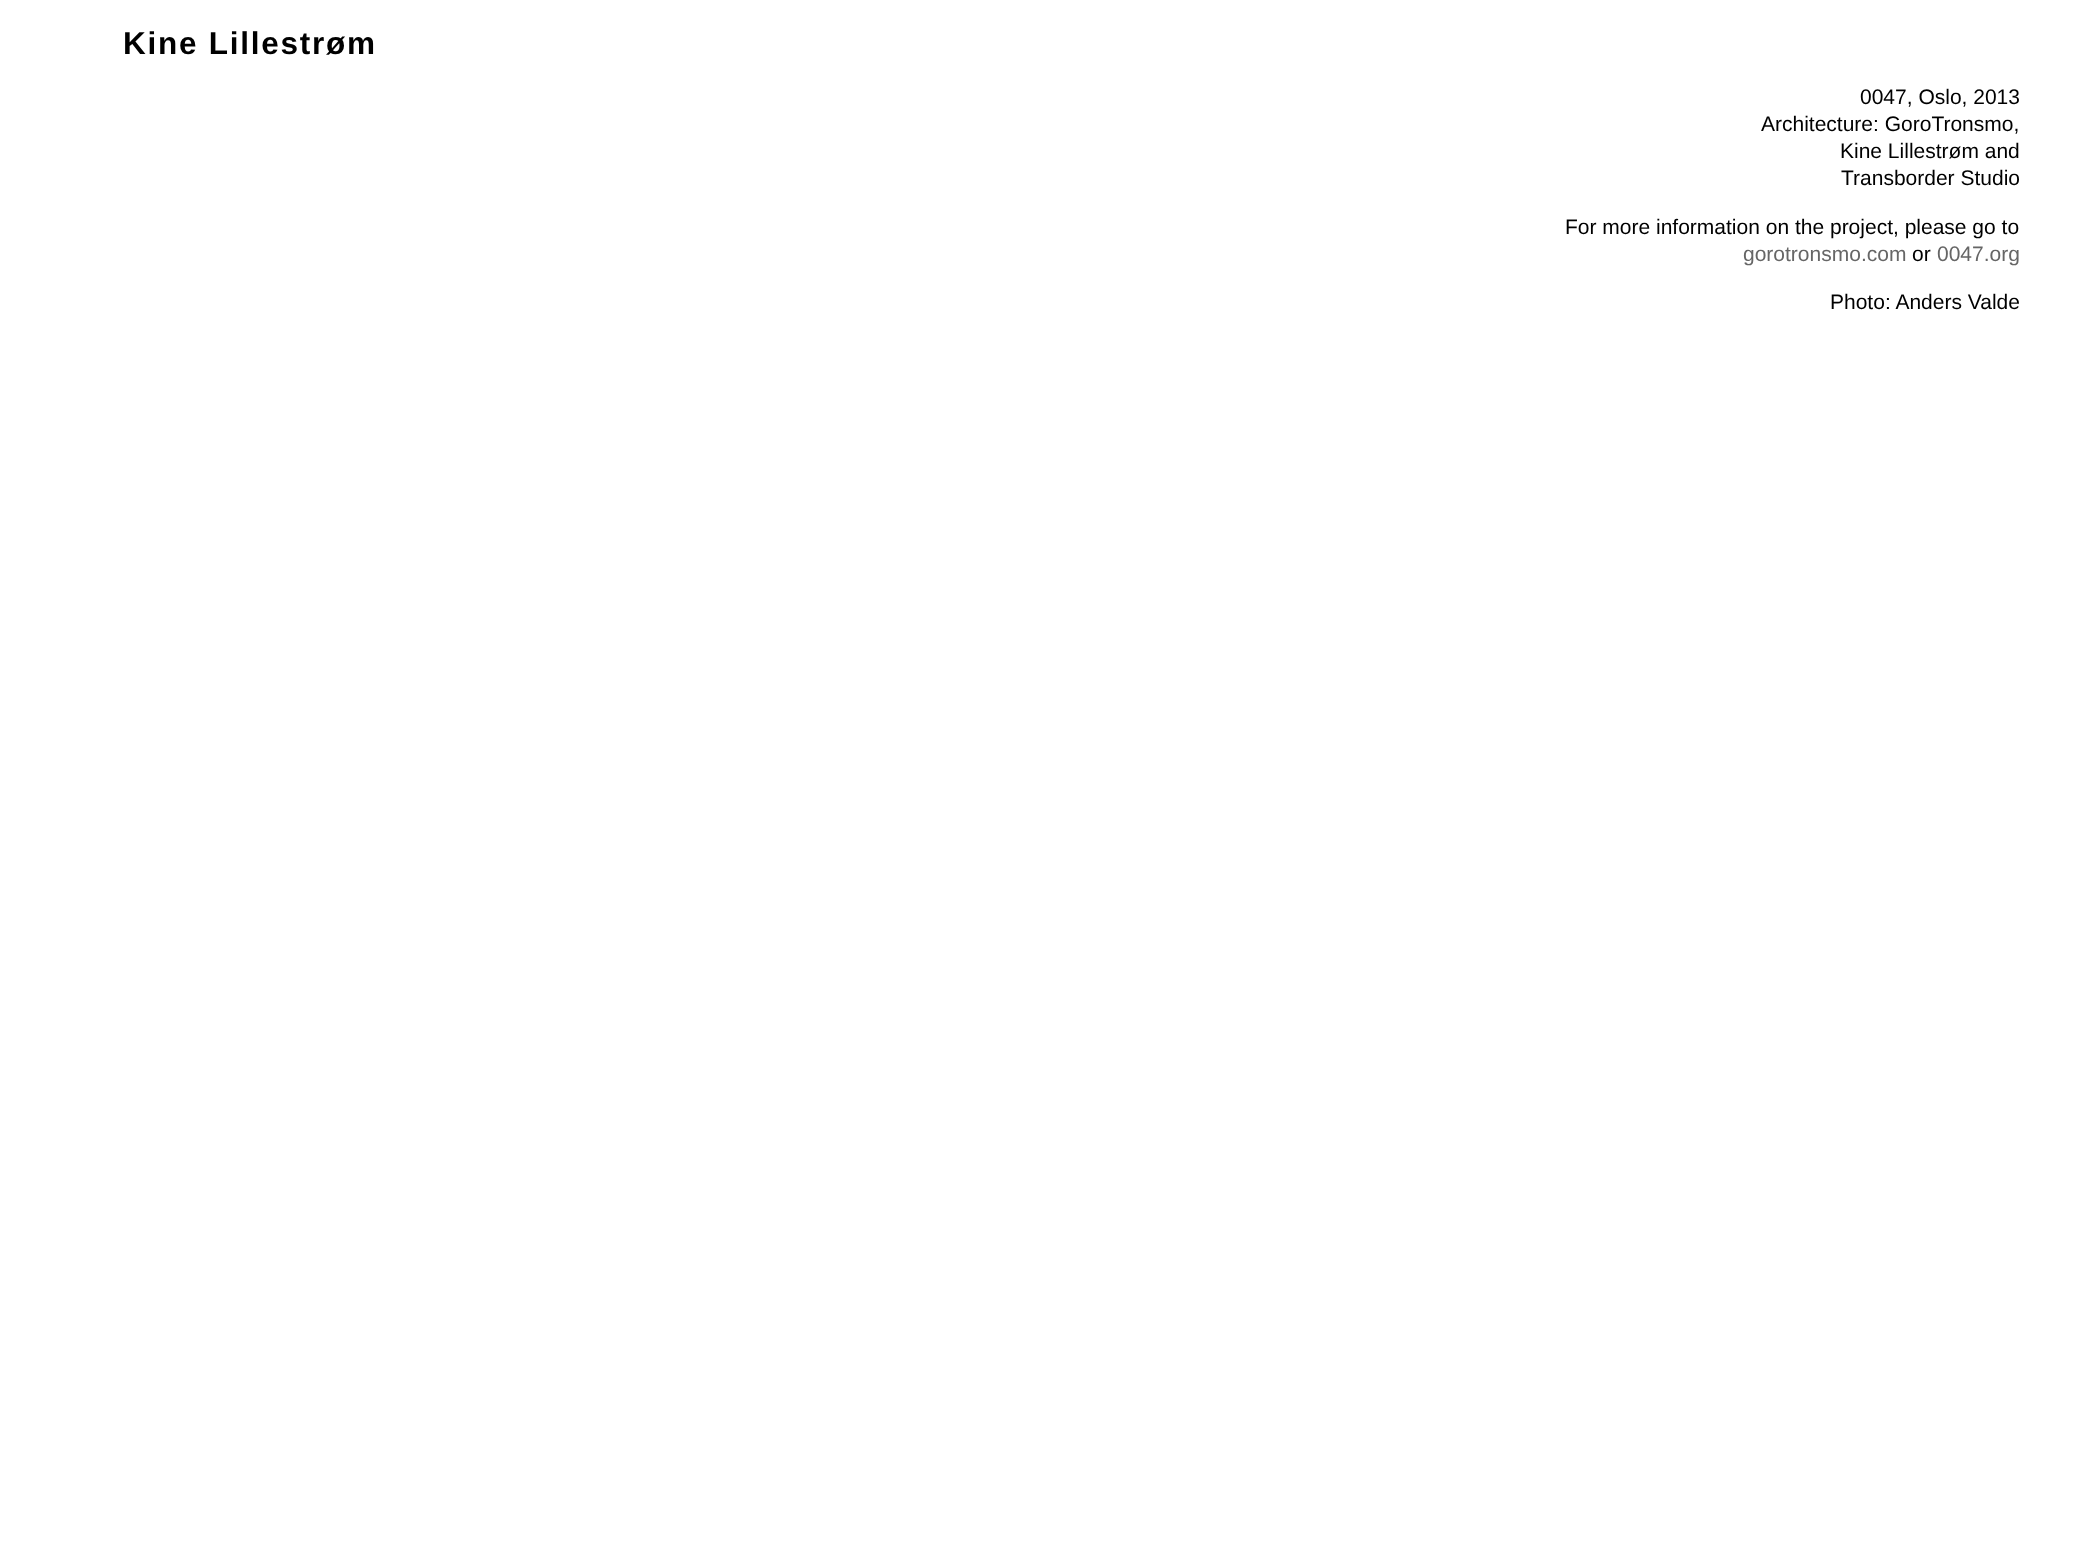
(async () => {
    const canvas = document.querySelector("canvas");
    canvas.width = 2081;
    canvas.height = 1560;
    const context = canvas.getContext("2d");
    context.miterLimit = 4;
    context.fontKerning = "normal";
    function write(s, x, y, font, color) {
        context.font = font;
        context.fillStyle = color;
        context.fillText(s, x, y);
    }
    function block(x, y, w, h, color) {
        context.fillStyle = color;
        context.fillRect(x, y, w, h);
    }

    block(0, 0, 2081, 1560, "rgb(255, 255, 255)");
    context.letterSpacing = "1.75px";
    write("Kine Lillestrøm", 123, 54, "bold 31.5px Liberation Sans", "rgb(0, 0, 0)");
    context.letterSpacing = "0px";
    write("0047, Oslo, 2013", 1860, 104, "21px Liberation Sans", "rgb(0, 0, 0)");
    write("Architecture: GoroTronsmo,", 1761, 131, "21px Liberation Sans", "rgb(0, 0, 0)");
    write("Kine Lillestrøm and", 1840, 158, "21px Liberation Sans", "rgb(0, 0, 0)");
    write("Transborder Studio", 1841, 185, "21px Liberation Sans", "rgb(0, 0, 0)");
    write("For more information on the project, please go to", 1565, 234, "21px Liberation Sans", "rgb(0, 0, 0)");
    write("gorotronsmo.com", 1743, 261, "21px Liberation Sans", "rgb(102, 102, 102)");
    write("or", 1912, 261, "21px Liberation Sans", "rgb(0, 0, 0)");
    write("0047.org", 1937, 261, "21px Liberation Sans", "rgb(102, 102, 102)");
    write("Photo: Anders Valde", 1830, 309, "21px Liberation Sans", "rgb(0, 0, 0)");
})();
